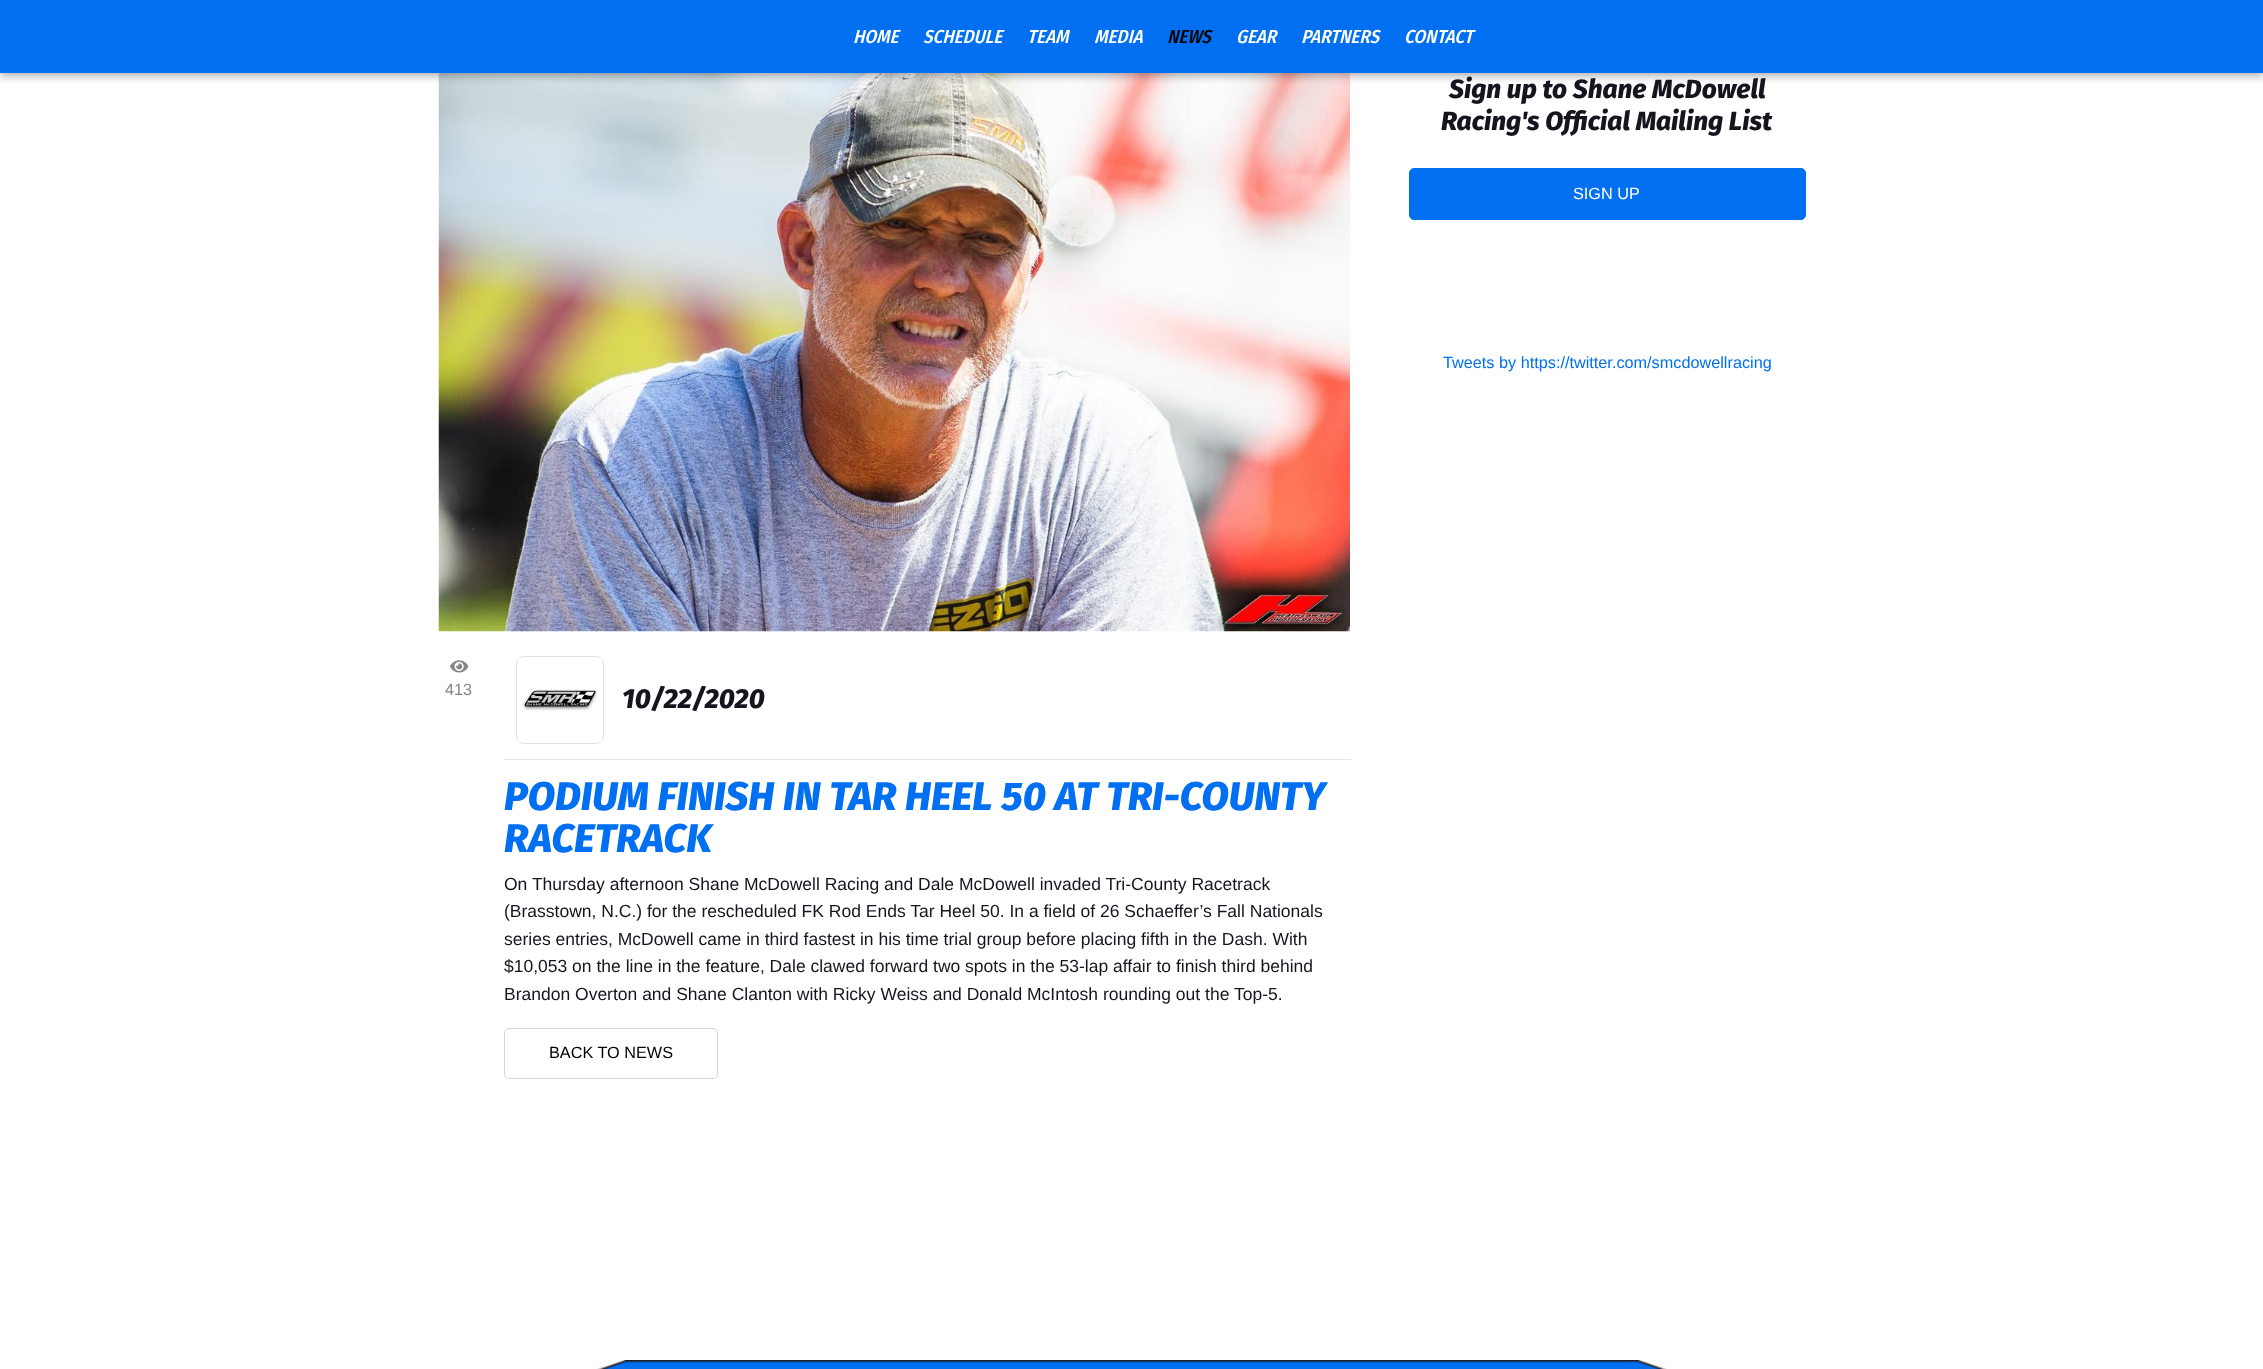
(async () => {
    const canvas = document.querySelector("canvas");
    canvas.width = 2263;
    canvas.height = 1369;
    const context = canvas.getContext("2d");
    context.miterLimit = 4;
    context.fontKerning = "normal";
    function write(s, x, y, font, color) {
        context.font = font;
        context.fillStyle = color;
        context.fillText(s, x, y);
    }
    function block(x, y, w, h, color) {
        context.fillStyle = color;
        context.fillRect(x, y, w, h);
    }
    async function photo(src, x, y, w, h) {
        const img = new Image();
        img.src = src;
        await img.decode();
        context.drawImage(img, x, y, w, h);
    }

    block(0, 0, 2263, 1369, "rgb(255, 255, 255)");
    await photo("media/1.png", 438, 73, 912, 559);
    context.fillStyle = "rgba(24, 24, 25, 0.35)";
    context.filter = "blur(4px)";
    context.beginPath();
    context.rect(0, 4, 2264, 72);
    context.fill();
    context.filter = "none";
    block(0, 0, 2263, 73, "rgb(0, 111, 241)");
    write("HOME", 853, 43, "italic 500 18.75px Fira Sans Condensed", "rgb(255, 255, 255)");
    write("SCHEDULE", 923, 43, "italic 500 18.75px Fira Sans Condensed", "rgb(255, 255, 255)");
    write("TEAM", 1027, 43, "italic 500 18.75px Fira Sans Condensed", "rgb(255, 255, 255)");
    write("MEDIA", 1094, 43, "italic 500 18.75px Fira Sans Condensed", "rgb(255, 255, 255)");
    write("NEWS", 1167, 43, "italic 500 18.75px Fira Sans Condensed", "rgb(0, 0, 0)");
    write("GEAR", 1236, 43, "italic 500 18.75px Fira Sans Condensed", "rgb(255, 255, 255)");
    write("PARTNERS", 1301, 43, "italic 500 18.75px Fira Sans Condensed", "rgb(255, 255, 255)");
    write("CONTACT", 1404, 43, "italic 500 18.75px Fira Sans Condensed", "rgb(255, 255, 255)");
    write("Sign up to Shane McDowell", 1449, 98, "italic 800 26.25px Fira Sans", "rgb(21, 21, 30)");
    write("Racing's Official Mailing List", 1441, 130, "italic 800 26.25px Fira Sans", "rgb(21, 21, 30)");
    context.fillStyle = "rgb(0, 111, 241)";
    context.beginPath();
    context.roundRect(1409.5, 168.5, 396, 51, 4.5);
    context.fill();
    context.strokeStyle = "rgb(0, 111, 241)";
    context.stroke();
    write("SIGN UP", 1573, 199, "16.25px Liberation Sans", "rgb(255, 255, 255)");
    write("Tweets by https://twitter.com/smcdowellracing", 1443, 368, "16.25px Liberation Sans", "rgb(0, 111, 241)");
    await photo("media/2.png", 450, 660, 19, 13);
    write("413", 445, 695, "16.25px Liberation Sans", "rgb(134, 134, 134)");
    context.beginPath();
    context.roundRect(516.5, 656.5, 87, 87, 7.5);
    context.strokeStyle = "rgb(225, 225, 225)";
    context.stroke();
    await photo("media/3.png", 518, 659, 84, 52);
    context.save();
    context.beginPath();
    context.rect(623, 686, 716, 28);
    context.clip();
    write("10/22/2020", 622, 708, "italic 800 27.5px Fira Sans", "rgb(21, 21, 30)");
    context.restore();
    block(504, 759, 847, 1, "rgb(230, 230, 230)");
    write("PODIUM FINISH IN TAR HEEL 50 AT TRI-COUNTY", 504, 810, "italic 800 40px Fira Sans", "rgb(0, 111, 241)");
    write("RACETRACK", 504, 852, "italic 800 40px Fira Sans", "rgb(0, 111, 241)");
    write("On Thursday afternoon Shane McDowell Racing and Dale McDowell invaded Tri-County Racetrack", 504, 890, "17.5px Liberation Sans", "rgb(21, 21, 30)");
    write("(Brasstown, N.C.) for the rescheduled FK Rod Ends Tar Heel 50. In a field of 26 Schaeffer’s Fall Nationals", 504, 917, "17.5px Liberation Sans", "rgb(21, 21, 30)");
    write("series entries, McDowell came in third fastest in his time trial group before placing fifth in the Dash. With", 504, 945, "17.5px Liberation Sans", "rgb(21, 21, 30)");
    write("$10,053 on the line in the feature, Dale clawed forward two spots in the 53-lap affair to finish third behind", 504, 972, "17.5px Liberation Sans", "rgb(21, 21, 30)");
    write("Brandon Overton and Shane Clanton with Ricky Weiss and Donald McIntosh rounding out the Top-5.", 504, 1000, "17.5px Liberation Sans", "rgb(21, 21, 30)");
    context.beginPath();
    context.roundRect(504.5, 1028.5, 213, 50, 4.5);
    context.strokeStyle = "rgb(215, 215, 215)";
    context.stroke();
    write("BACK TO NEWS", 549, 1058, "16.25px Liberation Sans", "rgb(0, 0, 0)");
    await photo("media/4.png", 0, 1360, 2263, 9);
})();
